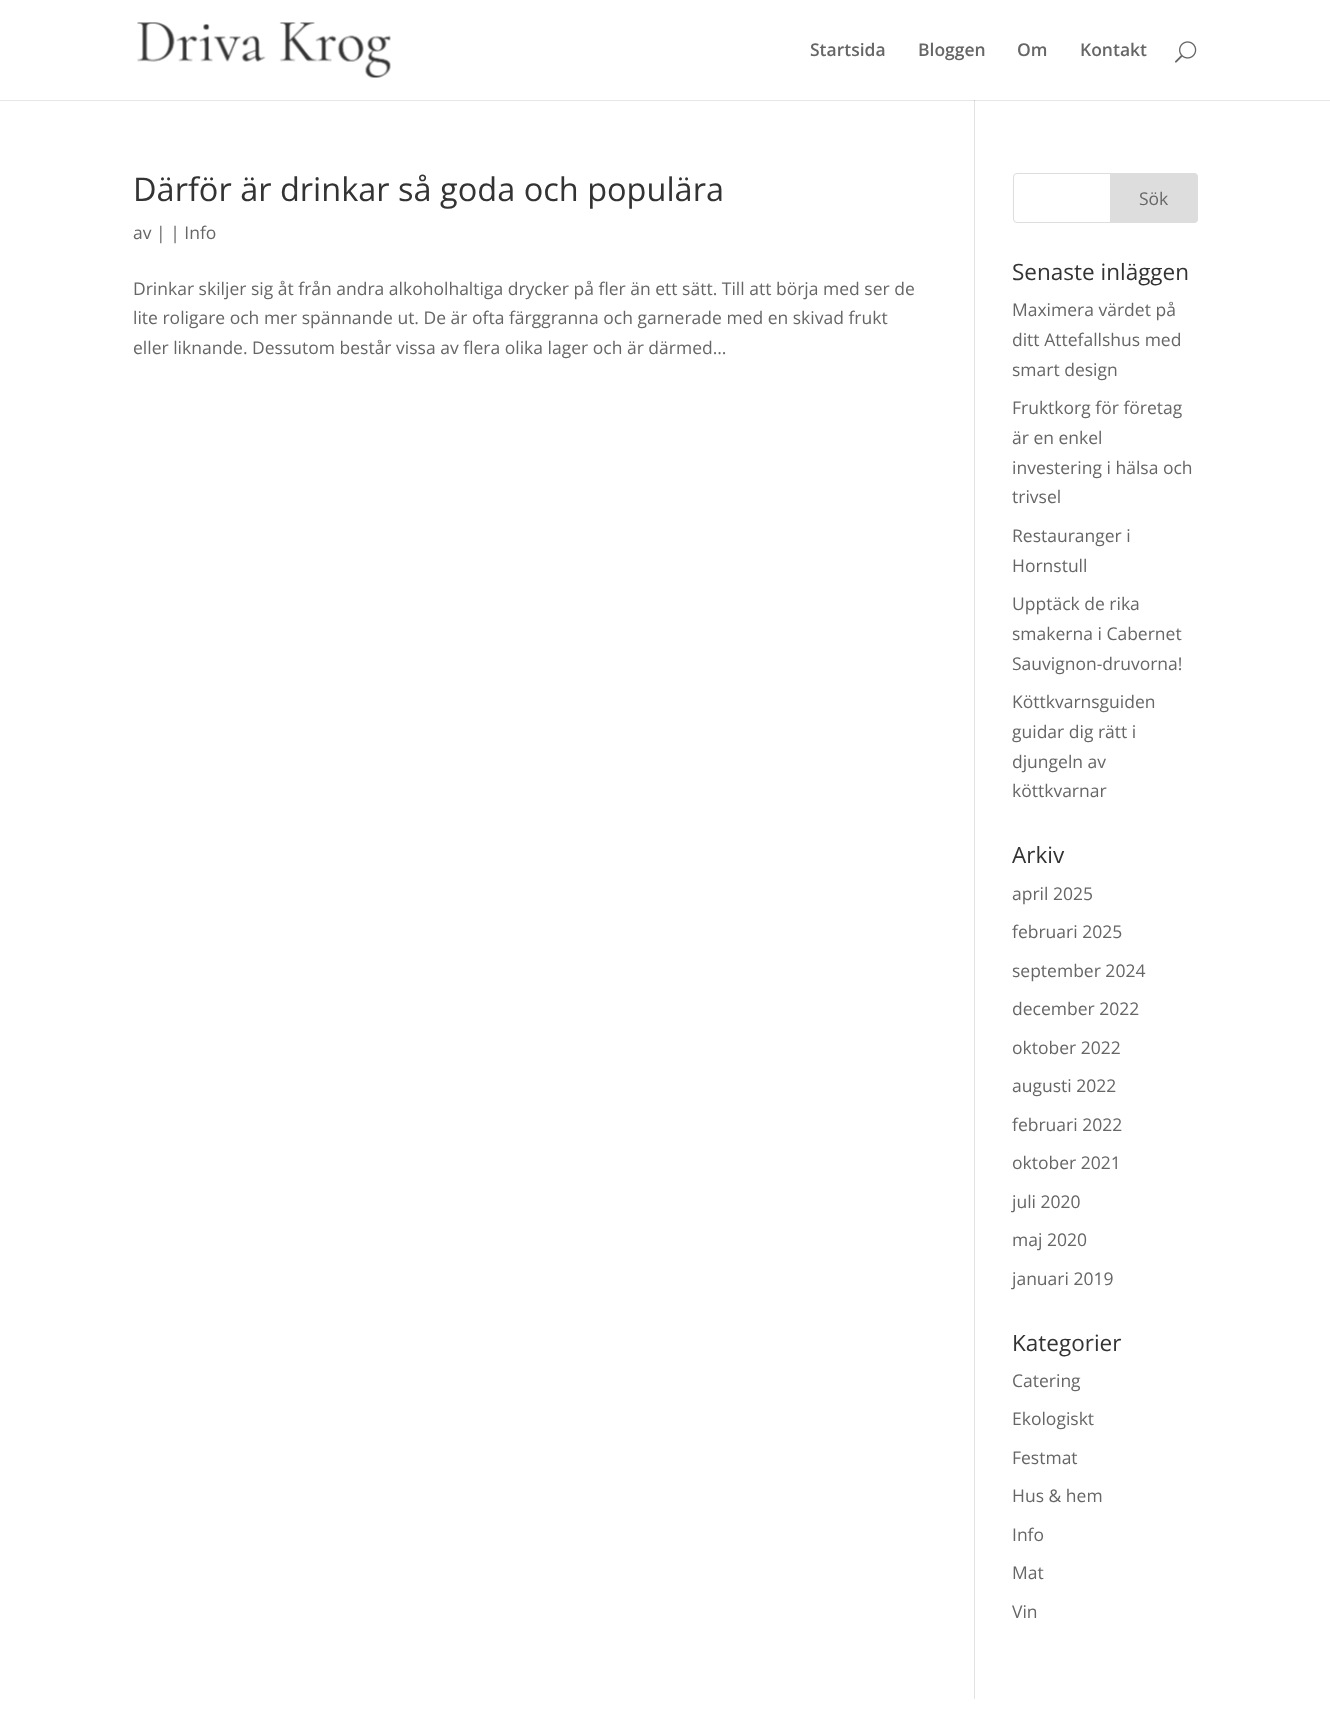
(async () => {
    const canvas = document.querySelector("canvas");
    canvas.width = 1330;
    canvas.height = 1728;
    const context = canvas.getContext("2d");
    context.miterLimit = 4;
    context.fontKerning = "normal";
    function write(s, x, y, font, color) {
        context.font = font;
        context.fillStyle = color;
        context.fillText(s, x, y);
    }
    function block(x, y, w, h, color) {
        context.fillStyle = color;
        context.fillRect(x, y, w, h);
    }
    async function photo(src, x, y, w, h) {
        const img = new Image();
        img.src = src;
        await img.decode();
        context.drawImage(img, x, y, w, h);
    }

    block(0, 0, 1330, 1728, "rgb(255, 255, 255)");
    block(0, 100, 1330, 1, "rgb(230, 230, 230)");
    await photo("media/1.png", 137, 22, 254, 56);
    write("Startsida", 810, 56, "600 17.5px Open Sans", "rgb(102, 102, 102)");
    write("Bloggen", 918, 56, "600 17.5px Open Sans", "rgb(102, 102, 102)");
    write("Om", 1017, 56, "600 17.5px Open Sans", "rgb(102, 102, 102)");
    write("Kontakt", 1080, 56, "600 17.5px Open Sans", "rgb(102, 102, 102)");
    await photo("media/2.png", 1175, 41, 22, 22);
    block(974, 100, 1, 1599, "rgb(226, 226, 226)");
    block(974, 100, 1, 1, "rgb(203, 203, 203)");
    write("Därför är drinkar så goda och populära", 133, 201, "32.5px Open Sans", "rgb(51, 51, 51)");
    write("av | | Info", 133, 239, "17.5px Open Sans", "rgb(102, 102, 102)");
    write("Drinkar skiljer sig åt från andra alkoholhaltiga drycker på fler än ett sätt. Till att börja med ser de", 133, 295, "17.5px Open Sans", "rgb(102, 102, 102)");
    write("lite roligare och mer spännande ut. De är ofta färggranna och garnerade med en skivad frukt", 133, 324, "17.5px Open Sans", "rgb(102, 102, 102)");
    write("eller liknande. Dessutom består vissa av flera olika lager och är därmed...", 133, 354, "17.5px Open Sans", "rgb(102, 102, 102)");
    context.beginPath();
    context.roundRect(1013.5, 173.5, 184, 49, 3.5);
    context.strokeStyle = "rgb(221, 221, 221)";
    context.stroke();
    context.fillStyle = "rgb(221, 221, 221)";
    context.beginPath();
    context.roundRect(1110.5, 173.5, 87, 49, [0, 3.5, 3.5, 0]);
    context.fill();
    context.stroke();
    write("Sök", 1139, 205, "17.5px Open Sans", "rgb(102, 102, 102)");
    write("Senaste inläggen", 1012, 280, "22.5px Open Sans", "rgb(51, 51, 51)");
    write("Maximera värdet på", 1012, 316, "17.5px Open Sans", "rgb(102, 102, 102)");
    write("ditt Attefallshus med", 1012, 346, "17.5px Open Sans", "rgb(102, 102, 102)");
    write("smart design", 1012, 376, "17.5px Open Sans", "rgb(102, 102, 102)");
    write("Fruktkorg för företag", 1012, 414, "17.5px Open Sans", "rgb(102, 102, 102)");
    write("är en enkel", 1012, 444, "17.5px Open Sans", "rgb(102, 102, 102)");
    write("investering i hälsa och", 1012, 474, "17.5px Open Sans", "rgb(102, 102, 102)");
    write("trivsel", 1012, 503, "17.5px Open Sans", "rgb(102, 102, 102)");
    write("Restauranger i", 1012, 542, "17.5px Open Sans", "rgb(102, 102, 102)");
    write("Hornstull", 1012, 572, "17.5px Open Sans", "rgb(102, 102, 102)");
    write("Upptäck de rika", 1012, 610, "17.5px Open Sans", "rgb(102, 102, 102)");
    write("smakerna i Cabernet", 1012, 640, "17.5px Open Sans", "rgb(102, 102, 102)");
    write("Sauvignon-druvorna!", 1012, 670, "17.5px Open Sans", "rgb(102, 102, 102)");
    write("Köttkvarnsguiden", 1012, 708, "17.5px Open Sans", "rgb(102, 102, 102)");
    write("guidar dig rätt i", 1012, 738, "17.5px Open Sans", "rgb(102, 102, 102)");
    write("djungeln av", 1012, 768, "17.5px Open Sans", "rgb(102, 102, 102)");
    write("köttkvarnar", 1012, 797, "17.5px Open Sans", "rgb(102, 102, 102)");
    write("Arkiv", 1012, 863, "22.5px Open Sans", "rgb(51, 51, 51)");
    write("april 2025", 1012, 900, "17.5px Open Sans", "rgb(102, 102, 102)");
    write("februari 2025", 1012, 938, "17.5px Open Sans", "rgb(102, 102, 102)");
    write("september 2024", 1012, 977, "17.5px Open Sans", "rgb(102, 102, 102)");
    write("december 2022", 1012, 1015, "17.5px Open Sans", "rgb(102, 102, 102)");
    write("oktober 2022", 1012, 1054, "17.5px Open Sans", "rgb(102, 102, 102)");
    write("augusti 2022", 1012, 1092, "17.5px Open Sans", "rgb(102, 102, 102)");
    write("februari 2022", 1012, 1131, "17.5px Open Sans", "rgb(102, 102, 102)");
    write("oktober 2021", 1012, 1169, "17.5px Open Sans", "rgb(102, 102, 102)");
    write("juli 2020", 1012, 1208, "17.5px Open Sans", "rgb(102, 102, 102)");
    write("maj 2020", 1012, 1246, "17.5px Open Sans", "rgb(102, 102, 102)");
    write("januari 2019", 1012, 1285, "17.5px Open Sans", "rgb(102, 102, 102)");
    write("Kategorier", 1012, 1351, "22.5px Open Sans", "rgb(51, 51, 51)");
    write("Catering", 1012, 1387, "17.5px Open Sans", "rgb(102, 102, 102)");
    write("Ekologiskt", 1012, 1425, "17.5px Open Sans", "rgb(102, 102, 102)");
    write("Festmat", 1012, 1464, "17.5px Open Sans", "rgb(102, 102, 102)");
    write("Hus & hem", 1012, 1502, "17.5px Open Sans", "rgb(102, 102, 102)");
    write("Info", 1012, 1541, "17.5px Open Sans", "rgb(102, 102, 102)");
    write("Mat", 1012, 1579, "17.5px Open Sans", "rgb(102, 102, 102)");
    write("Vin", 1012, 1618, "17.5px Open Sans", "rgb(102, 102, 102)");
})();
